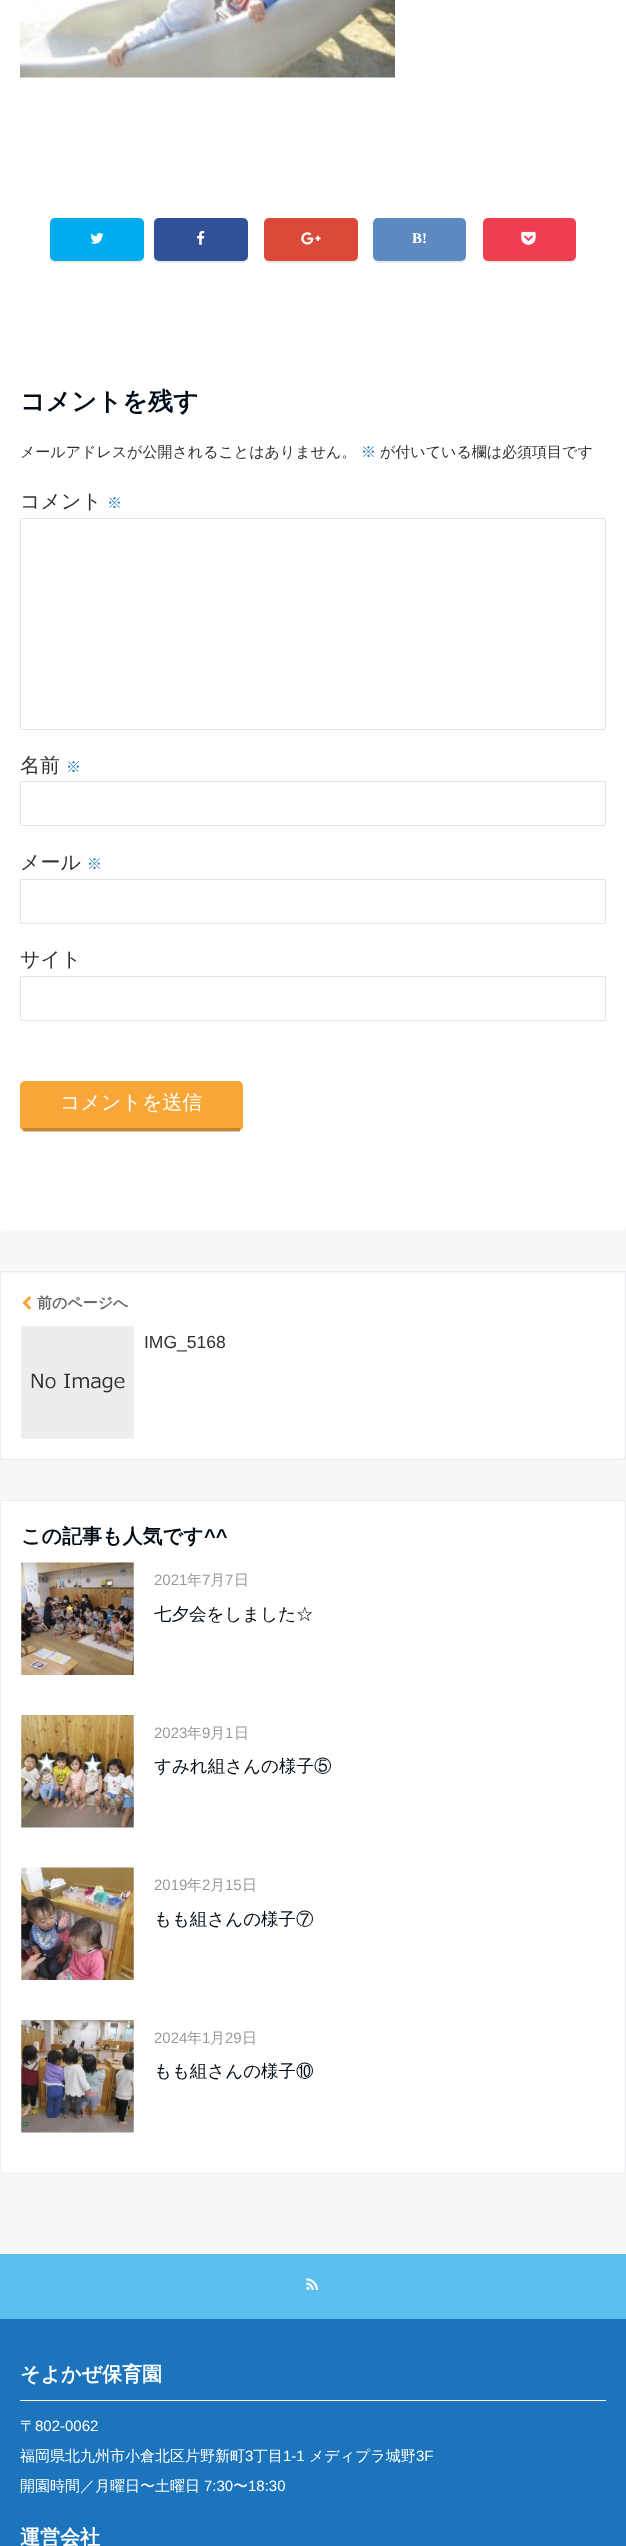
(async () => {
    const canvas = document.querySelector("canvas");
    canvas.width = 626;
    canvas.height = 2546;
    const context = canvas.getContext("2d");
    context.miterLimit = 4;
    context.fontKerning = "normal";
    function write(s, x, y, font, color) {
        context.font = font;
        context.fillStyle = color;
        context.fillText(s, x, y);
    }
    function block(x, y, w, h, color) {
        context.fillStyle = color;
        context.fillRect(x, y, w, h);
    }
    function card(x, y, w, h, r, color) {
        context.fillStyle = color;
        context.beginPath();
        context.roundRect(x, y, w, h, r);
        context.fill();
    }
    async function photo(src, x, y, w, h) {
        const img = new Image();
        img.src = src;
        await img.decode();
        context.drawImage(img, x, y, w, h);
    }

    block(0, 0, 626, 2546, "rgb(248, 248, 248)");
    context.fillStyle = "rgb(255, 255, 255)";
    context.beginPath();
    context.moveTo(0, -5);
    context.lineTo(626, -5);
    context.lineTo(626, 1226);
    context.bezierCurveTo(626, 1229, 624, 1231, 621, 1231);
    context.lineTo(5, 1231);
    context.bezierCurveTo(2, 1231, 0, 1229, 0, 1226);
    context.closePath();
    context.fill();
    await photo("media/1.png", 20, 0, 375, 78);
    context.fillStyle = "rgba(0, 0, 0, 0.08)";
    context.filter = "blur(0.5px)";
    context.beginPath();
    context.roundRect(50, 219, 94, 44, 5);
    context.fill();
    context.filter = "none";
    card(50, 218, 94, 43, 5, "rgb(0, 172, 238)");
    await photo("media/2.png", 90, 233, 14, 11);
    context.fillStyle = "rgba(0, 0, 0, 0.08)";
    context.filter = "blur(0.5px)";
    context.beginPath();
    context.roundRect(154, 219, 94, 44, 5);
    context.fill();
    context.filter = "none";
    card(154, 218, 94, 43, 5, "rgb(48, 80, 151)");
    await photo("media/3.png", 197, 230, 8, 15);
    context.fillStyle = "rgba(0, 0, 0, 0.08)";
    context.filter = "blur(0.5px)";
    context.beginPath();
    context.roundRect(264, 219, 94, 44, 5);
    context.fill();
    context.filter = "none";
    card(264, 218, 94, 43, 5, "rgb(219, 74, 57)");
    await photo("media/4.png", 301, 232, 20, 13);
    context.fillStyle = "rgba(0, 0, 0, 0.08)";
    context.filter = "blur(0.5px)";
    context.beginPath();
    context.roundRect(373, 219, 93, 44, 5);
    context.fill();
    context.filter = "none";
    card(373, 218, 93, 43, 5, "rgb(93, 138, 193)");
    write("B!", 412, 243, "bold 15px Liberation Serif", "rgb(255, 255, 255)");
    context.fillStyle = "rgba(0, 0, 0, 0.08)";
    context.filter = "blur(0.5px)";
    context.beginPath();
    context.roundRect(483, 219, 93, 44, 5);
    context.fill();
    context.filter = "none";
    card(483, 218, 93, 43, 5, "rgb(240, 62, 81)");
    await photo("media/5.png", 521, 231, 15, 14);
    write("コメントを残す", 20, 410, "bold 25px WenQuanYi Zen Hei", "rgb(0, 12, 21)");
    write("メールアドレスが公開されることはありません。", 20, 457, "500 15px WenQuanYi Zen Hei", "rgb(48, 48, 48)");
    write("※", 361, 457, "500 15px WenQuanYi Zen Hei", "rgb(28, 117, 188)");
    write("が付いている欄は必須項目です", 380, 457, "500 15px WenQuanYi Zen Hei", "rgb(48, 48, 48)");
    write("コメント", 20, 508, "500 20px WenQuanYi Zen Hei", "rgb(48, 48, 48)");
    write("※", 107, 508, "500 15px WenQuanYi Zen Hei", "rgb(28, 117, 188)");
    context.beginPath();
    context.roundRect(20.5, 518.5, 585, 211, 0.5);
    context.strokeStyle = "rgb(226, 229, 232)";
    context.stroke();
    write("名前", 20, 772, "500 20px WenQuanYi Zen Hei", "rgb(48, 48, 48)");
    write("※", 66, 772, "500 15px WenQuanYi Zen Hei", "rgb(28, 117, 188)");
    context.beginPath();
    context.roundRect(20.5, 781.5, 585, 44, 0.5);
    context.stroke();
    write("メール", 20, 869, "500 20px WenQuanYi Zen Hei", "rgb(48, 48, 48)");
    write("※", 87, 869, "500 15px WenQuanYi Zen Hei", "rgb(28, 117, 188)");
    context.beginPath();
    context.roundRect(20.5, 879.5, 585, 44, 0.5);
    context.stroke();
    write("サイト", 20, 966, "500 20px WenQuanYi Zen Hei", "rgb(48, 48, 48)");
    context.beginPath();
    context.roundRect(20.5, 976.5, 585, 44, 0.5);
    context.stroke();
    card(20, 1081, 223, 50, 5, "rgb(249, 166, 56)");
    block(23, 1128, 217, 4, "rgba(0, 0, 0, 0.2)");
    write("コメントを送信", 60, 1109, "500 20px WenQuanYi Zen Hei", "rgb(255, 255, 255)");
    context.strokeStyle = "rgb(235, 237, 240)";
    context.strokeRect(0.5, 1271.5, 625, 188);
    context.beginPath();
    context.roundRect(1, 1273, 624, 186, [0, 0, 5, 5]);
    context.fill();
    await photo("media/6.png", 22, 1296, 10, 14);
    write("前のページへ", 37, 1308, "bold 15px WenQuanYi Zen Hei", "rgb(102, 102, 102)");
    await photo("media/7.png", 21, 1326, 113, 113);
    write("IMG_5168", 144, 1348, "17.5px Liberation Sans", "rgb(48, 48, 48)");
    context.fillStyle = "rgb(255, 255, 255)";
    context.beginPath();
    context.roundRect(0.5, 1500.5, 625, 673, [0, 0, 4.5, 4.5]);
    context.fill();
    context.stroke();
    write("この記事も人気です", 21, 1543, "bold 20px WenQuanYi Zen Hei", "rgb(0, 12, 21)");
    write("^^", 204, 1543, "bold 20px Liberation Sans", "rgb(0, 12, 21)");
    await photo("media/8.png", 21, 1562, 113, 113);
    write("2021", 154, 1585, "15px Liberation Sans", "rgb(153, 153, 153)");
    write("年", 187, 1585, "500 15px WenQuanYi Zen Hei", "rgb(153, 153, 153)");
    write("7", 202, 1585, "15px Liberation Sans", "rgb(153, 153, 153)");
    write("月", 210, 1585, "500 15px WenQuanYi Zen Hei", "rgb(153, 153, 153)");
    write("7", 225, 1585, "15px Liberation Sans", "rgb(153, 153, 153)");
    write("日", 234, 1585, "500 15px WenQuanYi Zen Hei", "rgb(153, 153, 153)");
    write("七夕会をしました☆", 154, 1620, "500 17.5px WenQuanYi Zen Hei", "rgb(0, 12, 21)");
    await photo("media/9.png", 21, 1715, 113, 113);
    write("2023", 154, 1738, "15px Liberation Sans", "rgb(153, 153, 153)");
    write("年", 187, 1738, "500 15px WenQuanYi Zen Hei", "rgb(153, 153, 153)");
    write("9", 202, 1738, "15px Liberation Sans", "rgb(153, 153, 153)");
    write("月", 210, 1738, "500 15px WenQuanYi Zen Hei", "rgb(153, 153, 153)");
    write("1", 225, 1738, "15px Liberation Sans", "rgb(153, 153, 153)");
    write("日", 234, 1738, "500 15px WenQuanYi Zen Hei", "rgb(153, 153, 153)");
    write("すみれ組さんの様子⑤", 154, 1772, "500 17.5px WenQuanYi Zen Hei", "rgb(0, 12, 21)");
    await photo("media/10.png", 21, 1867, 113, 113);
    write("2019", 154, 1890, "15px Liberation Sans", "rgb(153, 153, 153)");
    write("年", 187, 1890, "500 15px WenQuanYi Zen Hei", "rgb(153, 153, 153)");
    write("2", 202, 1890, "15px Liberation Sans", "rgb(153, 153, 153)");
    write("月", 210, 1890, "500 15px WenQuanYi Zen Hei", "rgb(153, 153, 153)");
    write("15", 225, 1890, "15px Liberation Sans", "rgb(153, 153, 153)");
    write("日", 242, 1890, "500 15px WenQuanYi Zen Hei", "rgb(153, 153, 153)");
    write("もも組さんの様子⑦", 154, 1925, "500 17.5px WenQuanYi Zen Hei", "rgb(0, 12, 21)");
    await photo("media/11.png", 21, 2020, 113, 113);
    write("2024", 154, 2043, "15px Liberation Sans", "rgb(153, 153, 153)");
    write("年", 187, 2043, "500 15px WenQuanYi Zen Hei", "rgb(153, 153, 153)");
    write("1", 202, 2043, "15px Liberation Sans", "rgb(153, 153, 153)");
    write("月", 210, 2043, "500 15px WenQuanYi Zen Hei", "rgb(153, 153, 153)");
    write("29", 225, 2043, "15px Liberation Sans", "rgb(153, 153, 153)");
    write("日", 242, 2043, "500 15px WenQuanYi Zen Hei", "rgb(153, 153, 153)");
    write("もも組さんの様子⑩", 154, 2077, "500 17.5px WenQuanYi Zen Hei", "rgb(0, 12, 21)");
    block(0, 2319, 626, 227, "rgb(28, 117, 188)");
    block(0, 2254, 626, 65, "rgb(92, 192, 239)");
    await photo("media/12.png", 306, 2278, 12, 12);
    block(20, 2400, 586, 1, "rgb(255, 255, 255)");
    write("そよかぜ保育園", 20, 2381, "bold 20px WenQuanYi Zen Hei", "rgb(255, 255, 255)");
    write("〒", 20, 2431, "500 15px WenQuanYi Zen Hei", "rgb(255, 255, 255)");
    write("802-0062", 35, 2431, "15px Liberation Sans", "rgb(255, 255, 255)");
    write("福岡県北九州市小倉北区片野新町", 20, 2461, "500 15px WenQuanYi Zen Hei", "rgb(255, 255, 255)");
    write("3", 245, 2461, "15px Liberation Sans", "rgb(255, 255, 255)");
    write("丁目", 253, 2461, "500 15px WenQuanYi Zen Hei", "rgb(255, 255, 255)");
    write("1-1", 283, 2461, "15px Liberation Sans", "rgb(255, 255, 255)");
    write("メディプラ城野", 309, 2461, "500 15px WenQuanYi Zen Hei", "rgb(255, 255, 255)");
    write("3F", 416, 2461, "15px Liberation Sans", "rgb(255, 255, 255)");
    write("開園時間／月曜日〜土曜日", 20, 2491, "500 15px WenQuanYi Zen Hei", "rgb(255, 255, 255)");
    write("7:30", 204, 2491, "15px Liberation Sans", "rgb(255, 255, 255)");
    write("〜", 233, 2491, "500 15px WenQuanYi Zen Hei", "rgb(255, 255, 255)");
    write("18:30", 248, 2491, "15px Liberation Sans", "rgb(255, 255, 255)");
    write("運営会社", 20, 2544, "bold 20px WenQuanYi Zen Hei", "rgb(255, 255, 255)");
})();
